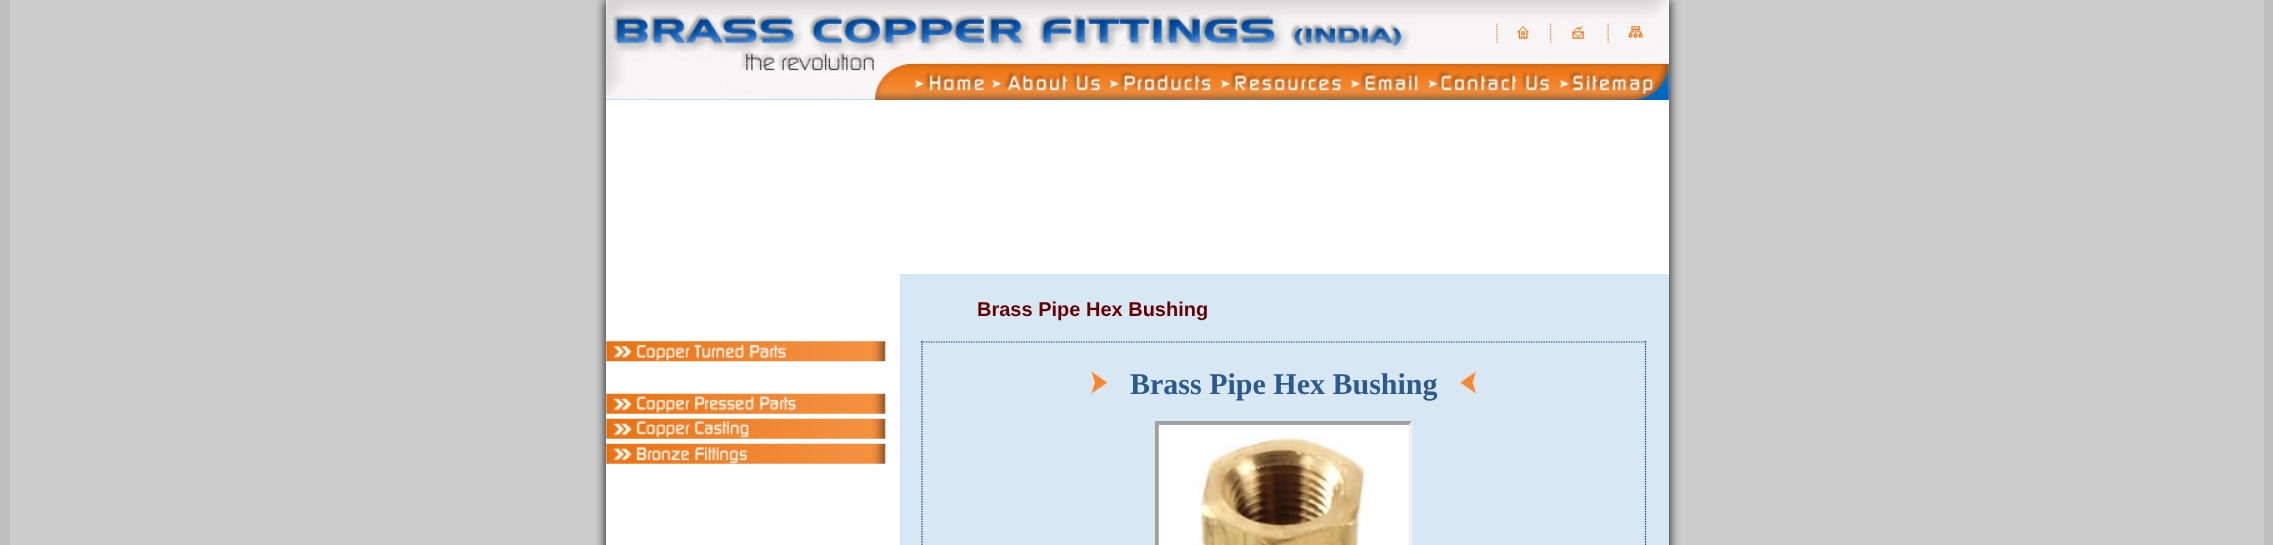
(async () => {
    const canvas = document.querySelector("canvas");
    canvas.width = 2273;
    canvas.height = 545;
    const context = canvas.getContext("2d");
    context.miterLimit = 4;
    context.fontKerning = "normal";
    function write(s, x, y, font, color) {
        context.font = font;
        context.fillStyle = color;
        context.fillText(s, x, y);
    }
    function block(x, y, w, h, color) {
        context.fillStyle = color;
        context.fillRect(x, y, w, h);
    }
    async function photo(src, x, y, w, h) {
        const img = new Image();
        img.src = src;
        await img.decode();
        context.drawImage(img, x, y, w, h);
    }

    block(0, 0, 2273, 545, "rgb(192, 192, 192)");
    block(10, 0, 2254, 545, "rgb(204, 204, 204)");
    context.fillStyle = "rgb(0, 0, 0)";
    context.filter = "blur(5.5px)";
    context.beginPath();
    context.rect(606, 0, 1063, 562);
    context.fill();
    context.filter = "none";
    block(606, 0, 1063, 545, "rgb(255, 255, 255)");
    await photo("media/2.png", 606, 63, 1063, 37);
    await photo("media/3.png", 911, 63, 78, 37);
    await photo("media/4.png", 988, 63, 119, 28);
    await photo("media/5.png", 1106, 63, 112, 28);
    await photo("media/6.png", 1217, 63, 131, 32);
    await photo("media/7.png", 1347, 63, 78, 28);
    await photo("media/8.png", 1425, 63, 132, 28);
    await photo("media/9.png", 1556, 63, 113, 37);
    await photo("media/1.png", 606, 0, 1063, 64);
    await photo("media/10.png", 606, 341, 281, 21);
    await photo("media/11.png", 606, 393, 281, 21);
    await photo("media/12.png", 606, 418, 281, 21);
    await photo("media/13.png", 606, 443, 281, 21);
    block(900, 274, 769, 271, "rgb(215, 231, 243)");
    write("Brass Pipe Hex Bushing", 977, 316, "bold 20px Liberation Sans", "rgb(102, 0, 0)");
    context.beginPath();
    context.moveTo(921, 342);
    context.lineTo(1646, 342);
    context.strokeStyle = "rgb(0, 51, 102)";
    context.lineWidth = 1.2;
    context.setLineDash([1.25, 1.25]);
    context.stroke();
    context.beginPath();
    context.moveTo(1645.5, 341);
    context.lineTo(1645.5, 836);
    context.stroke();
    context.beginPath();
    context.moveTo(922, 341);
    context.lineTo(922, 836);
    context.stroke();
    await photo("media/14.png", 1091, 371, 17, 23);
    write("Brass Pipe Hex Bushing", 1130, 394, "bold 30px Liberation Serif", "rgb(45, 89, 139)");
    await photo("media/15.png", 1460, 371, 17, 23);
    context.fillStyle = "rgb(159, 159, 159)";
    context.beginPath();
    context.moveTo(1155, 421);
    context.lineTo(1412, 421);
    context.lineTo(1409, 425);
    context.lineTo(1159, 425);
    context.closePath();
    context.fill();
    context.beginPath();
    context.moveTo(1155, 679);
    context.lineTo(1155, 421);
    context.lineTo(1159, 425);
    context.lineTo(1159, 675);
    context.closePath();
    context.fill();
    await photo("media/16.png", 1158, 425, 251, 120);
    context.fillStyle = "rgb(238, 238, 238)";
    context.beginPath();
    context.moveTo(1412, 421);
    context.lineTo(1412, 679);
    context.lineTo(1409, 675);
    context.lineTo(1409, 425);
    context.closePath();
    context.fill();
})();
